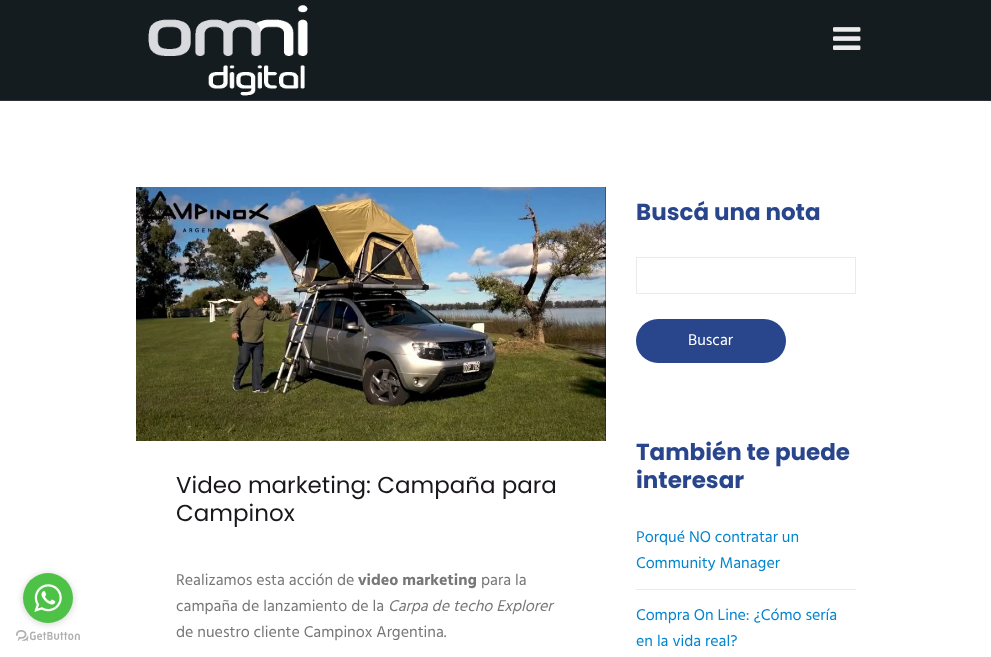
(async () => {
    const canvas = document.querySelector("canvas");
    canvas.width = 991;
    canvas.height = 657;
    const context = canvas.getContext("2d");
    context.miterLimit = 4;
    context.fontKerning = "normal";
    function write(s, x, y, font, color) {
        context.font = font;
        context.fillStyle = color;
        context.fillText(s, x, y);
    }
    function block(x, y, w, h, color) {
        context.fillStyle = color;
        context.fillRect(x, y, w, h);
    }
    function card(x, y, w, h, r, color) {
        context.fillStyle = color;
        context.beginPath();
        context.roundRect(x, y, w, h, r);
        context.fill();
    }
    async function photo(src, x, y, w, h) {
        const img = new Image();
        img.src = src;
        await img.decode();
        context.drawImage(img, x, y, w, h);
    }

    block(0, 0, 991, 657, "rgb(255, 255, 255)");
    await photo("media/2.png", 16, 630, 64, 11);
    context.fillStyle = "rgba(136, 136, 136, 0.4)";
    context.filter = "blur(3.5px)";
    context.beginPath();
    context.roundRect(23, 574, 50, 50, 25);
    context.fill();
    context.filter = "none";
    context.fillStyle = "rgb(77, 194, 71)";
    context.beginPath();
    context.arc(48, 598, 25, 0, Math.PI * 2);
    context.fill();
    await photo("media/1.png", 34, 584, 28, 28);
    block(0, 0, 991, 100, "rgb(21, 28, 31)");
    block(0, 100, 991, 1, "rgb(44, 51, 53)");
    await photo("media/3.png", 148, 5, 160, 91);
    await photo("media/4.png", 833, 27, 28, 23);
    await photo("media/5.png", 136, 187, 470, 254);
    write("Video marketing: Campaña para", 176, 493, "23px Poppins", "rgb(26, 23, 28)");
    write("Campinox", 176, 521, "23px Poppins", "rgb(26, 23, 28)");
    write("Realizamos esta acción de", 176, 585, "16px Hind", "rgb(119, 119, 119)");
    write("video marketing", 358, 585, "bold 16px Hind", "rgb(119, 119, 119)");
    write("para la", 481, 585, "16px Hind", "rgb(119, 119, 119)");
    write("campaña de lanzamiento de la", 176, 611, "16px Hind", "rgb(119, 119, 119)");
    write("Carpa de techo Explorer", 388, 611, "italic 16px Hind", "rgb(119, 119, 119)");
    write("de nuestro cliente Campinox Argentina.", 176, 637, "16px Hind", "rgb(119, 119, 119)");
    write("Buscá una nota", 636, 220, "bold 23px Poppins", "rgb(41, 70, 140)");
    context.strokeStyle = "rgb(235, 235, 235)";
    context.strokeRect(636.5, 257.5, 219, 36);
    card(636, 319, 150, 44, 22, "rgb(41, 70, 140)");
    write("Buscar", 688, 345, "16px Hind", "rgb(255, 255, 255)");
    write("También te puede", 636, 460, "bold 23px Poppins", "rgb(41, 70, 140)");
    write("interesar", 636, 488, "bold 23px Poppins", "rgb(41, 70, 140)");
    block(636, 589, 220, 1, "rgb(235, 235, 235)");
    write("Porqué NO contratar un", 636, 542, "16px Hind", "rgb(3, 133, 208)");
    write("Community Manager", 636, 568, "16px Hind", "rgb(3, 133, 208)");
    write("Compra On Line: ¿Cómo sería", 636, 620, "16px Hind", "rgb(3, 133, 208)");
    write("en la vida real?", 636, 646, "16px Hind", "rgb(3, 133, 208)");
})();
